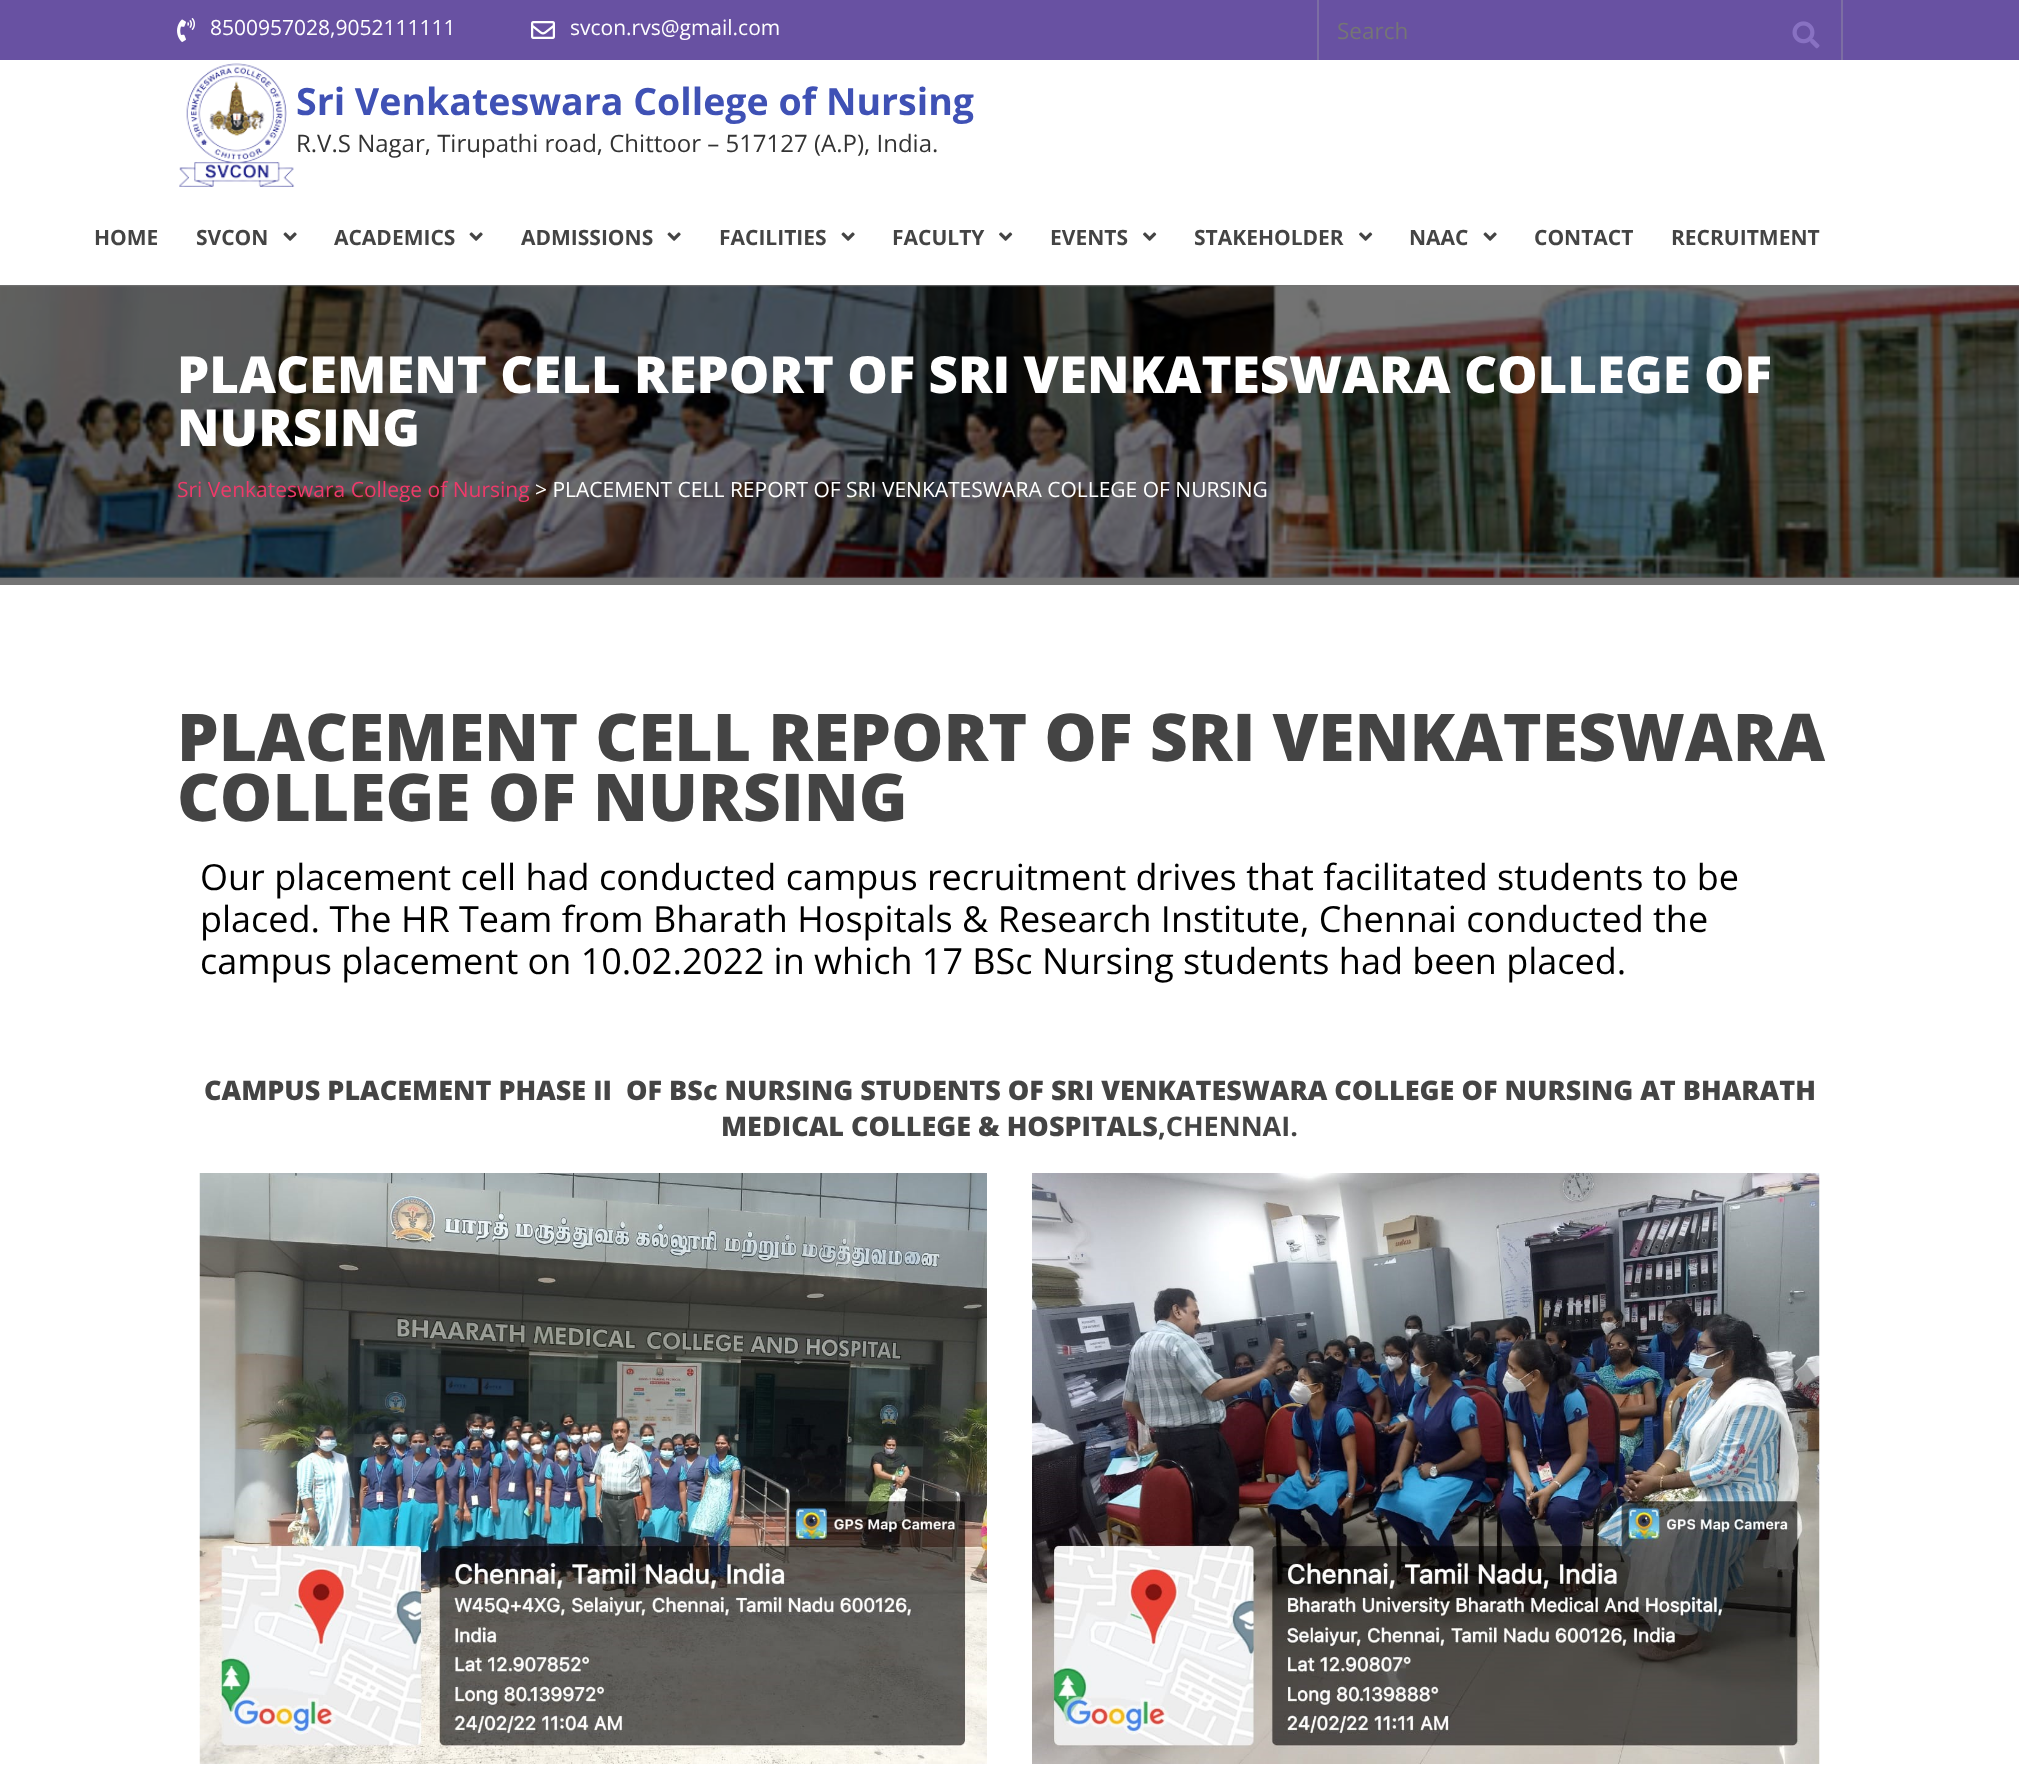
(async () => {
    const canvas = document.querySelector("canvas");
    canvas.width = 2019;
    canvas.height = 1790;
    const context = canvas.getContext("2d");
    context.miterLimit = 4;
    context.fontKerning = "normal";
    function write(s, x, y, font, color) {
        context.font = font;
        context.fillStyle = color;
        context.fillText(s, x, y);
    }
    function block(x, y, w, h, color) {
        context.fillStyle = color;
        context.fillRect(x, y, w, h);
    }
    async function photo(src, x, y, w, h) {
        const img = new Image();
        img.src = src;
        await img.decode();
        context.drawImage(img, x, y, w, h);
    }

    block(0, 0, 2019, 1790, "rgb(255, 255, 255)");
    block(0, 578, 2019, 7, "rgb(115, 115, 115)");
    block(0, 0, 2019, 60, "rgb(104, 81, 162)");
    await photo("media/1.png", 177, 18, 18, 24);
    write("8500957028,9052111111", 210, 35, "21px Open Sans", "rgb(255, 255, 255)");
    await photo("media/2.png", 531, 21, 24, 18);
    write("svcon.rvs@gmail.com", 570, 35, "21px Open Sans", "rgb(255, 255, 255)");
    block(1841, 0, 2, 60, "rgb(124, 110, 163)");
    block(1317, 0, 2, 60, "rgb(124, 110, 163)");
    write("Search", 1337, 39, "22.5px Open Sans", "rgb(117, 117, 117)");
    await photo("media/3.png", 1792, 21, 28, 28);
    await photo("media/4.png", 179, 63, 116, 124);
    write("Sri Venkateswara College of Nursing", 296, 115, "bold 37.5px Open Sans", "rgb(63, 81, 181)");
    write("R.V.S Nagar, Tirupathi road, Chittoor – 517127 (A.P), India.", 296, 152, "24px Open Sans", "rgb(51, 51, 51)");
    write("HOME", 94, 245, "bold 21px Open Sans", "rgb(68, 68, 68)");
    write("SVCON", 196, 245, "bold 21px Open Sans", "rgb(68, 68, 68)");
    await photo("media/5.png", 283, 232, 14, 9);
    write("ACADEMICS", 334, 245, "bold 21px Open Sans", "rgb(68, 68, 68)");
    await photo("media/5.png", 469, 232, 14, 9);
    write("ADMISSIONS", 521, 245, "bold 21px Open Sans", "rgb(68, 68, 68)");
    await photo("media/5.png", 667, 232, 14, 9);
    write("FACILITIES", 719, 245, "bold 21px Open Sans", "rgb(68, 68, 68)");
    await photo("media/5.png", 841, 232, 14, 9);
    write("FACULTY", 892, 245, "bold 21px Open Sans", "rgb(68, 68, 68)");
    await photo("media/6.png", 999, 232, 14, 9);
    write("EVENTS", 1050, 245, "bold 21px Open Sans", "rgb(68, 68, 68)");
    await photo("media/6.png", 1143, 232, 14, 9);
    write("STAKEHOLDER", 1194, 245, "bold 21px Open Sans", "rgb(68, 68, 68)");
    await photo("media/6.png", 1359, 232, 14, 9);
    write("NAAC", 1409, 245, "bold 21px Open Sans", "rgb(68, 68, 68)");
    await photo("media/5.png", 1483, 232, 14, 9);
    write("CONTACT", 1534, 245, "bold 21px Open Sans", "rgb(68, 68, 68)");
    write("RECRUITMENT", 1671, 245, "bold 21px Open Sans", "rgb(68, 68, 68)");
    await photo("media/7.png", 0, 285, 2019, 293);
    write("PLACEMENT CELL REPORT OF SRI VENKATESWARA COLLEGE OF", 177, 393, "800 51px Open Sans", "rgb(255, 255, 255)");
    write("NURSING", 177, 446, "800 51px Open Sans", "rgb(255, 255, 255)");
    write("Sri Venkateswara College of Nursing", 177, 497, "21px Open Sans", "rgb(238, 58, 106)");
    write("> PLACEMENT CELL REPORT OF SRI VENKATESWARA COLLEGE OF NURSING", 535, 497, "21px Open Sans", "rgb(255, 255, 255)");
    write("PLACEMENT CELL REPORT OF SRI VENKATESWARA", 177, 761, "800 66px Open Sans", "rgb(68, 68, 68)");
    write("COLLEGE OF NURSING", 177, 821, "800 66px Open Sans", "rgb(68, 68, 68)");
    write("Our placement cell had conducted campus recruitment drives that facilitated students to be", 200, 890, "36px Open Sans", "rgb(0, 0, 0)");
    write("placed. The HR Team from Bharath Hospitals & Research Institute, Chennai conducted the", 200, 932, "36px Open Sans", "rgb(0, 0, 0)");
    write("campus placement on 10.02.2022 in which 17 BSc Nursing students had been placed.", 200, 974, "36px Open Sans", "rgb(0, 0, 0)");
    write("CAMPUS PLACEMENT PHASE II  OF BSc NURSING STUDENTS OF SRI VENKATESWARA COLLEGE OF NURSING AT BHARATH", 204, 1100, "800 27px Open Sans", "rgb(68, 68, 68)");
    write("MEDICAL COLLEGE & HOSPITALS", 721, 1136, "800 27px Open Sans", "rgb(68, 68, 68)");
    write(",CHENNAI.", 1158, 1136, "bold 27px Open Sans", "rgb(68, 68, 68)");
    await photo("media/8.png", 199, 1173, 788, 591);
    await photo("media/9.png", 1032, 1173, 788, 591);
})();
